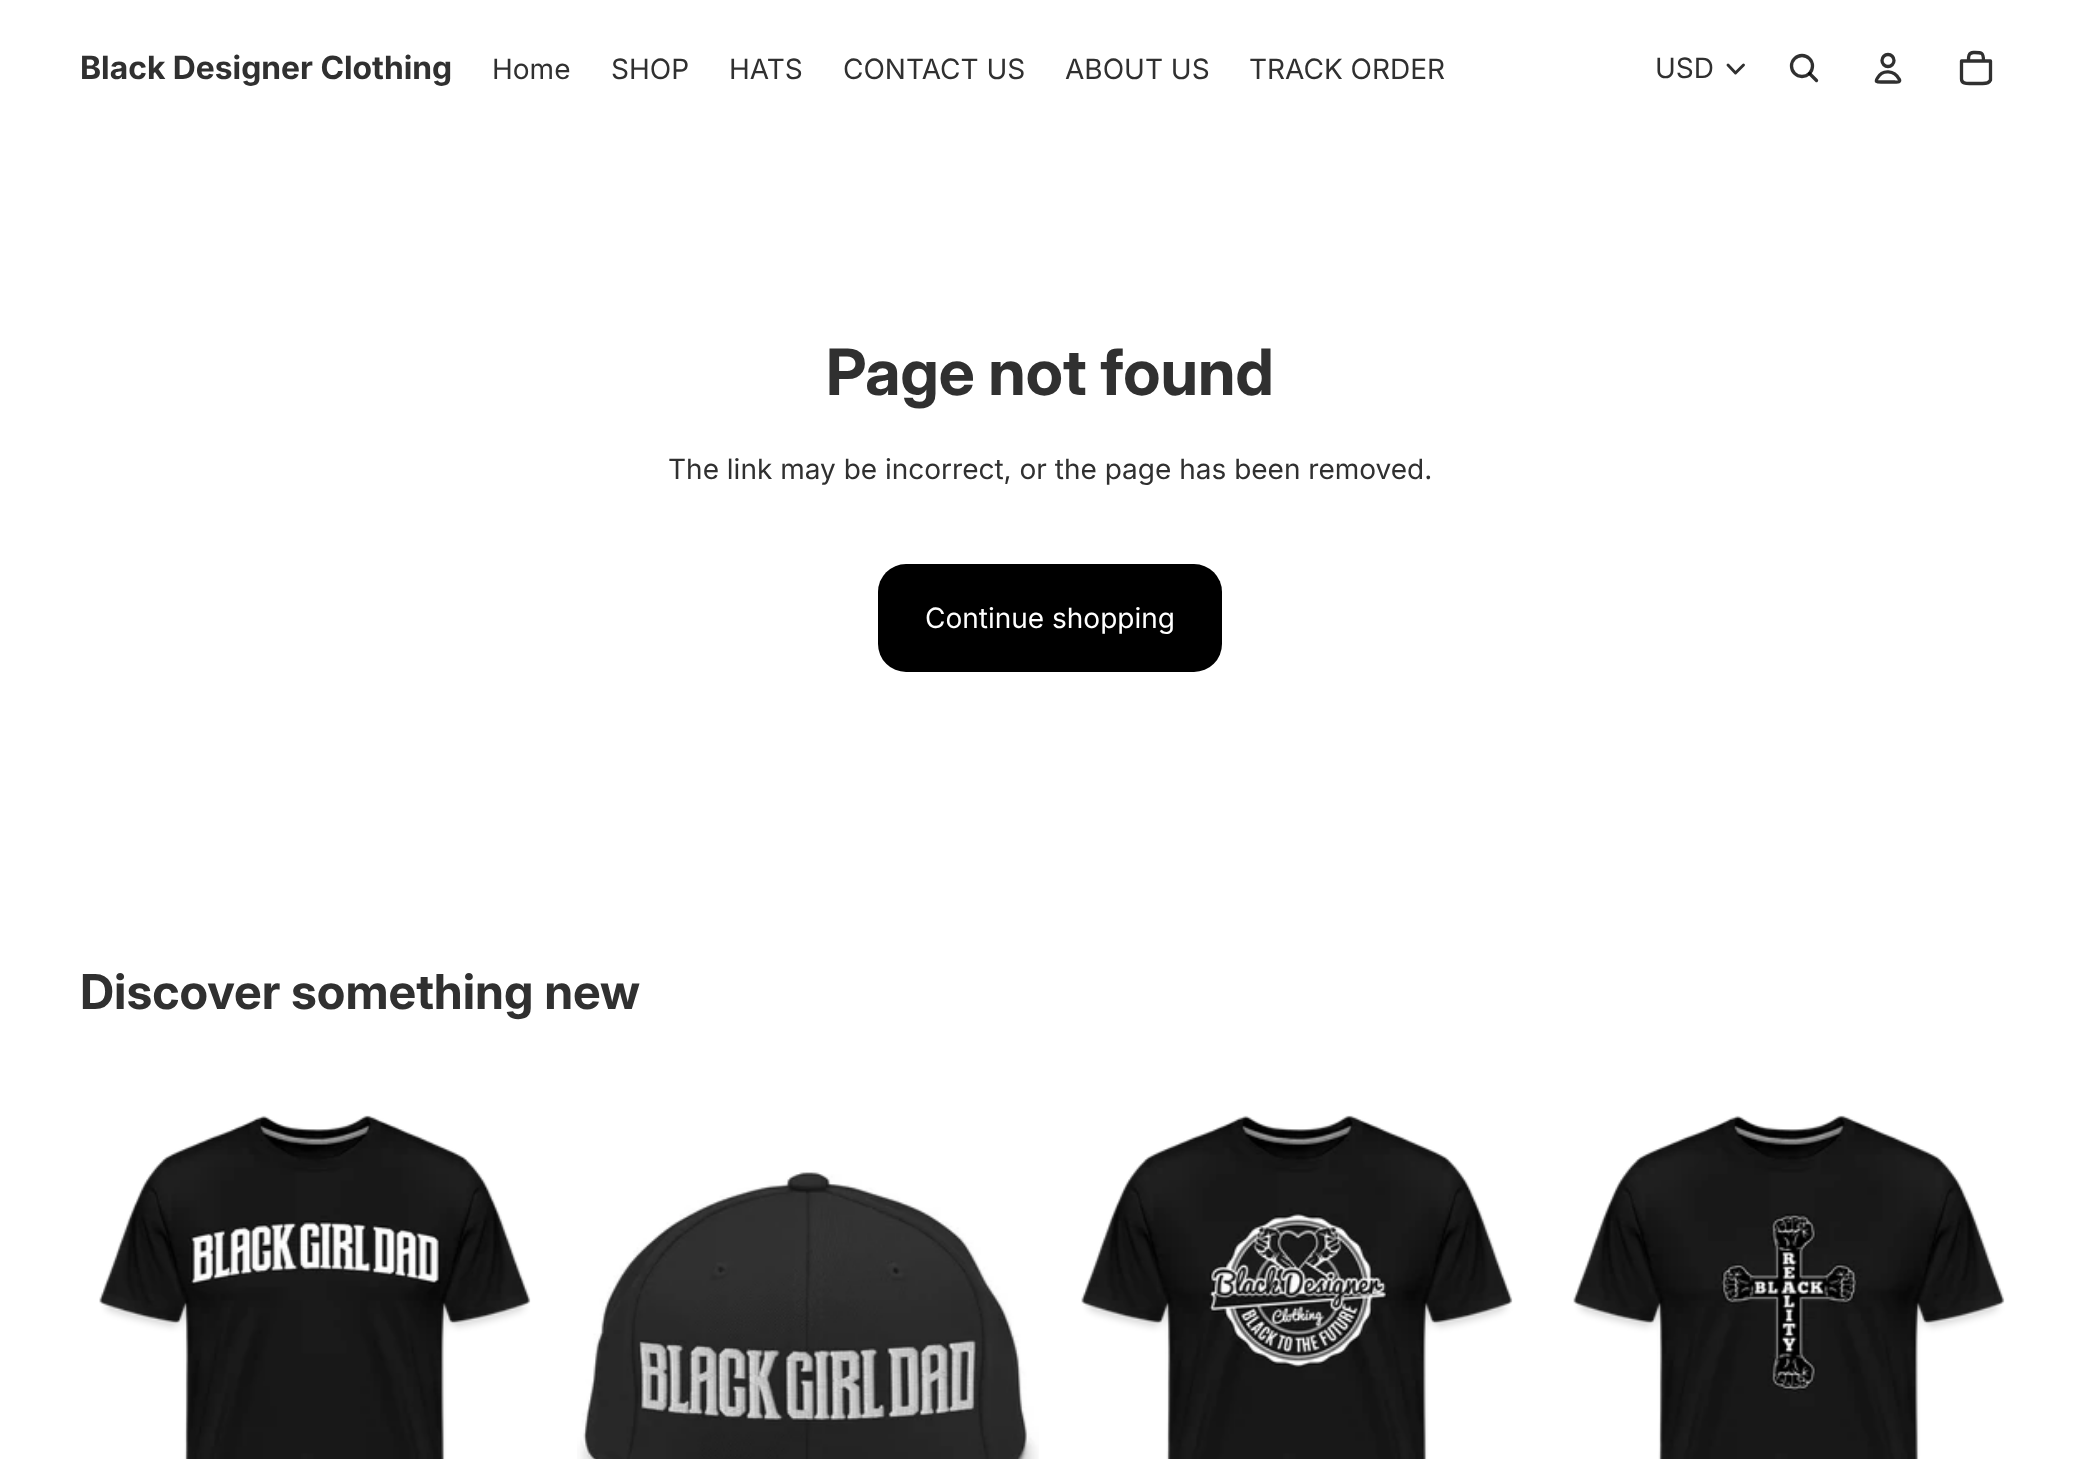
(async () => {
    const canvas = document.querySelector("canvas");
    canvas.width = 2100;
    canvas.height = 1459;
    const context = canvas.getContext("2d");
    context.miterLimit = 4;
    context.fontKerning = "normal";
    function write(s, x, y, font, color) {
        context.font = font;
        context.fillStyle = color;
        context.fillText(s, x, y);
    }
    function block(x, y, w, h, color) {
        context.fillStyle = color;
        context.fillRect(x, y, w, h);
    }
    function card(x, y, w, h, r, color) {
        context.fillStyle = color;
        context.beginPath();
        context.roundRect(x, y, w, h, r);
        context.fill();
    }
    async function photo(src, x, y, w, h) {
        const img = new Image();
        img.src = src;
        await img.decode();
        context.drawImage(img, x, y, w, h);
    }

    block(0, 0, 2100, 1459, "rgb(255, 255, 255)");
    write("Black Designer Clothing", 80, 79, "bold 32px 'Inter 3'", "rgb(48, 48, 48)");
    write("Home", 492, 79, "28px Inter", "rgb(48, 48, 48)");
    write("SHOP", 611, 79, "28px Inter", "rgb(48, 48, 48)");
    write("HATS", 729, 79, "28px Inter", "rgb(48, 48, 48)");
    write("CONTACT US", 843, 79, "28px Inter", "rgb(48, 48, 48)");
    write("ABOUT US", 1065, 79, "28px Inter", "rgb(48, 48, 48)");
    write("TRACK ORDER", 1249, 79, "28px Inter", "rgb(48, 48, 48)");
    write("USD", 1655, 78, "28px Inter", "rgb(48, 48, 48)");
    context.beginPath();
    context.moveTo(1743.5, 65);
    context.lineTo(1735.5, 73);
    context.lineTo(1728, 65);
    context.strokeStyle = "rgb(48, 48, 48)";
    context.lineWidth = 2.9;
    context.lineCap = "round";
    context.lineJoin = "round";
    context.stroke();
    context.beginPath();
    context.arc(1802, 66, 10.5, 0, Math.PI * 2);
    context.lineWidth = 3.3;
    context.stroke();
    context.beginPath();
    context.moveTo(1809.5, 73.5);
    context.lineTo(1816.5, 80.5);
    context.strokeStyle = "rgba(0, 0, 0, 0.81)";
    context.stroke();
    context.beginPath();
    context.arc(1888, 60.5, 6, 0, Math.PI * 2);
    context.strokeStyle = "rgb(48, 48, 48)";
    context.stroke();
    context.beginPath();
    context.moveTo(1877.5, 78);
    context.bezierCurveTo(1875, 82, 1876.5, 82, 1881, 82);
    context.lineTo(1895, 82);
    context.bezierCurveTo(1895.5, 82, 1899, 82.5, 1899.5, 81);
    context.bezierCurveTo(1900, 80.5, 1899.5, 79.5, 1899, 79);
    context.bezierCurveTo(1894.5, 70.5, 1882.5, 69, 1877.5, 78);
    context.stroke();
    context.beginPath();
    context.moveTo(1961.5, 61);
    context.lineTo(1990.5, 61);
    context.lineTo(1990.5, 80);
    context.bezierCurveTo(1989, 83.5, 1985.5, 83.5, 1982.5, 83.5);
    context.lineTo(1969.5, 83.5);
    context.bezierCurveTo(1966, 83.5, 1961.5, 83.5, 1961.5, 79);
    context.closePath();
    context.moveTo(1973.5, 52.5);
    context.bezierCurveTo(1981.5, 52.5, 1983.5, 52, 1983.5, 61);
    context.lineTo(1968.5, 61);
    context.bezierCurveTo(1968.5, 57.5, 1968, 52.5, 1973.5, 52.5);
    context.stroke();
    write("Page not found", 826, 395, "bold 64px Inter", "rgb(48, 48, 48)");
    write("The link may be incorrect, or the page has been removed.", 668, 479, "28px Inter", "rgb(48, 48, 48)");
    card(878, 564, 344, 108, 28, "rgb(0, 0, 0)");
    write("Continue shopping", 925, 628, "28px Inter", "rgb(255, 255, 255)");
    write("Discover something new", 80, 1009, "bold 48px 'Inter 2'", "rgb(48, 48, 48)");
    await photo("media/1.png", 99, 1115, 432, 344);
    await photo("media/2.png", 577, 1170, 462, 289);
    await photo("media/3.png", 1081, 1115, 432, 344);
    await photo("media/4.png", 1573, 1115, 432, 344);
})();
